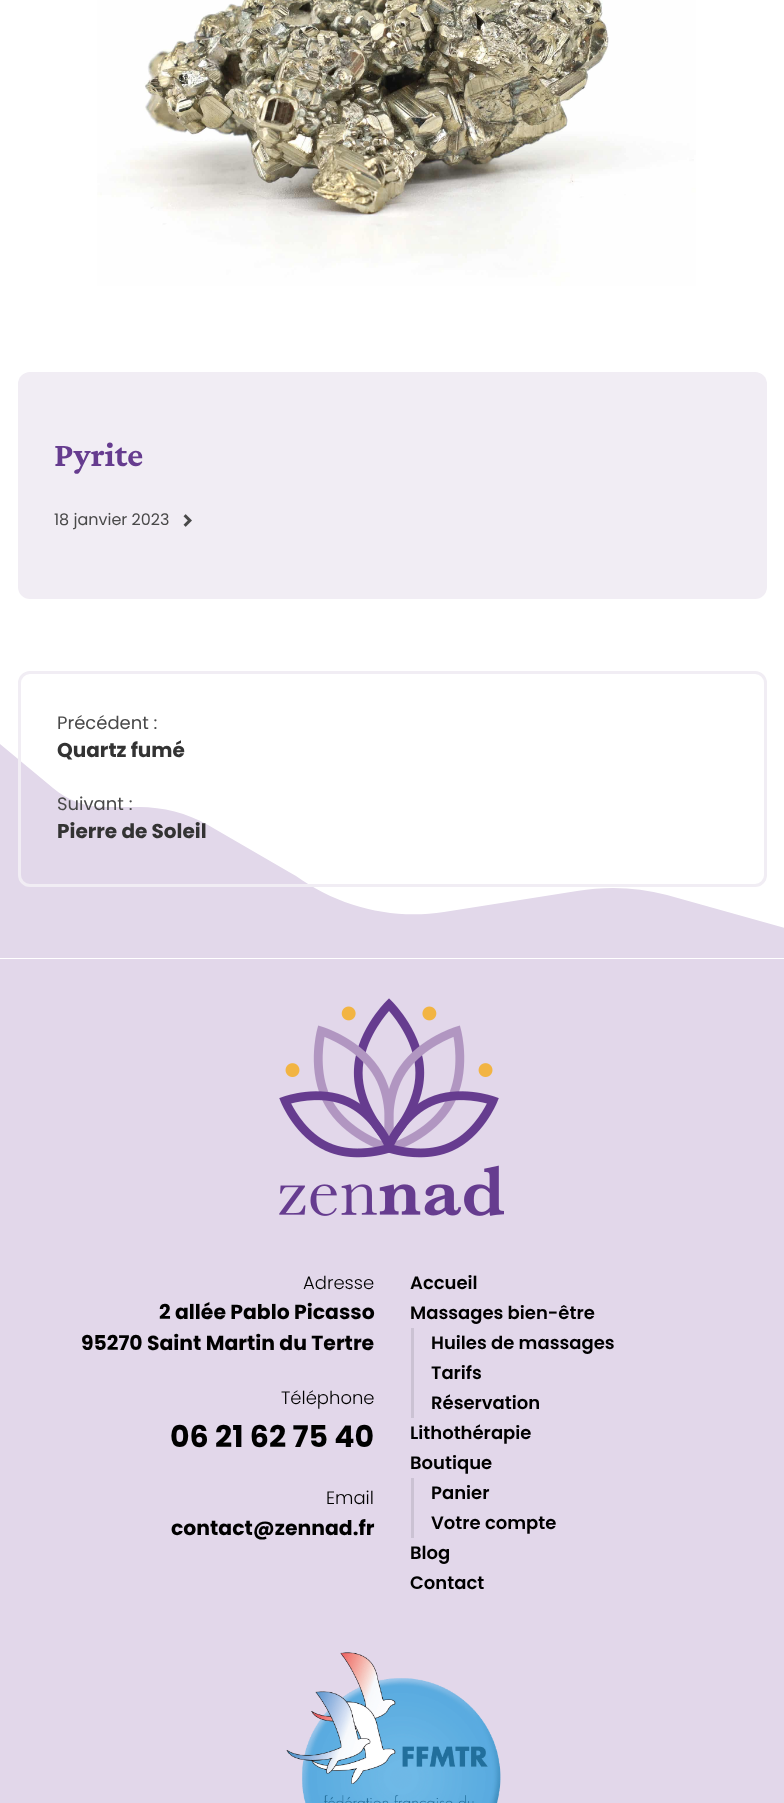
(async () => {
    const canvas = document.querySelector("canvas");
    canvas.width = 784;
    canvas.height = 1803;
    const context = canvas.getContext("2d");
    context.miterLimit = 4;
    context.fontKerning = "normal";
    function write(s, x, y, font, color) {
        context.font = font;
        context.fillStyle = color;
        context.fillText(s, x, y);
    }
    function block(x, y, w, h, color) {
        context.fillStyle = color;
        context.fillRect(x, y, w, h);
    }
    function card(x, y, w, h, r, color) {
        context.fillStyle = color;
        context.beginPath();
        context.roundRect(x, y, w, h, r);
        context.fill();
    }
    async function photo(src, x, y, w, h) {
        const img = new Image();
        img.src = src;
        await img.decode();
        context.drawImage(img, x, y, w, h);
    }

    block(0, 0, 784, 1803, "rgb(255, 255, 255)");
    context.fillStyle = "rgb(226, 216, 234)";
    context.beginPath();
    context.moveTo(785, 928);
    context.lineTo(667, 895);
    context.bezierCurveTo(637, 887, 607, 886, 577, 891);
    context.lineTo(444, 912);
    context.bezierCurveTo(392, 920, 339, 907, 296, 876);
    context.lineTo(289, 872);
    context.lineTo(208, 825);
    context.bezierCurveTo(187, 813, 163, 807, 139, 807);
    context.lineTo(104, 807);
    context.bezierCurveTo(85, 807, 67, 800, 53, 788);
    context.lineTo(0, 744);
    context.lineTo(0, 958);
    context.lineTo(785, 958);
    context.closePath();
    context.fill();
    await photo("media/1.png", 97, 0, 599, 286);
    card(18, 372, 749, 227, 12, "rgb(241, 237, 244)");
    write("Pyrite", 54, 466, "bold 35px Crimson Pro", "rgb(102, 60, 143)");
    write("18 janvier 2023", 54, 525, "16px Poppins", "rgb(73, 73, 73)");
    await photo("media/2.png", 183, 514, 9, 13);
    context.beginPath();
    context.roundRect(19.5, 672.5, 746, 213, 10.5);
    context.strokeStyle = "rgb(241, 237, 244)";
    context.lineWidth = 3;
    context.stroke();
    write("Précédent :", 57, 729, "18px Poppins", "rgb(73, 73, 73)");
    write("Quartz fumé", 57, 757, "bold 20px Poppins", "rgb(51, 51, 51)");
    write("Suivant :", 57, 810, "18px Poppins", "rgb(73, 73, 73)");
    write("Pierre de Soleil", 57, 838, "bold 20px Poppins", "rgb(51, 51, 51)");
    block(0, 959, 784, 844, "rgb(226, 215, 234)");
    await photo("media/3.png", 279, 998, 225, 218);
    write("Adresse", 303, 1289, "300 18px Poppins", "rgb(0, 0, 0)");
    write("2 allée Pablo Picasso", 159, 1319, "bold 20.4px Poppins", "rgb(0, 0, 0)");
    write("95270 Saint Martin du Tertre", 81, 1350, "bold 20.4px Poppins", "rgb(0, 0, 0)");
    write("Téléphone", 281, 1404, "300 18px Poppins", "rgb(0, 0, 0)");
    write("06 21 62 75 40", 170, 1447, "bold 30px Poppins", "rgb(0, 0, 0)");
    write("Email", 326, 1504, "300 18px Poppins", "rgb(0, 0, 0)");
    write("contact@zennad.fr", 171, 1535, "bold 20.4px Poppins", "rgb(0, 0, 0)");
    write("Accueil", 410, 1289, "600 18px Poppins", "rgb(0, 0, 0)");
    write("Massages bien-être", 410, 1319, "600 18px Poppins", "rgb(0, 0, 0)");
    block(411, 1328, 3, 90, "rgb(203, 194, 211)");
    write("Huiles de massages", 431, 1349, "600 18px Poppins", "rgb(0, 0, 0)");
    write("Tarifs", 431, 1379, "600 18px Poppins", "rgb(0, 0, 0)");
    write("Réservation", 431, 1409, "600 18px Poppins", "rgb(0, 0, 0)");
    write("Lithothérapie", 410, 1439, "600 18px Poppins", "rgb(0, 0, 0)");
    write("Boutique", 410, 1469, "600 18px Poppins", "rgb(0, 0, 0)");
    block(411, 1478, 3, 60, "rgb(203, 194, 211)");
    write("Panier", 431, 1499, "600 18px Poppins", "rgb(0, 0, 0)");
    write("Votre compte", 431, 1529, "600 18px Poppins", "rgb(0, 0, 0)");
    write("Blog", 410, 1559, "600 18px Poppins", "rgb(0, 0, 0)");
    write("Contact", 410, 1589, "600 18px Poppins", "rgb(0, 0, 0)");
    await photo("media/4.png", 286, 1652, 215, 151);
})();
